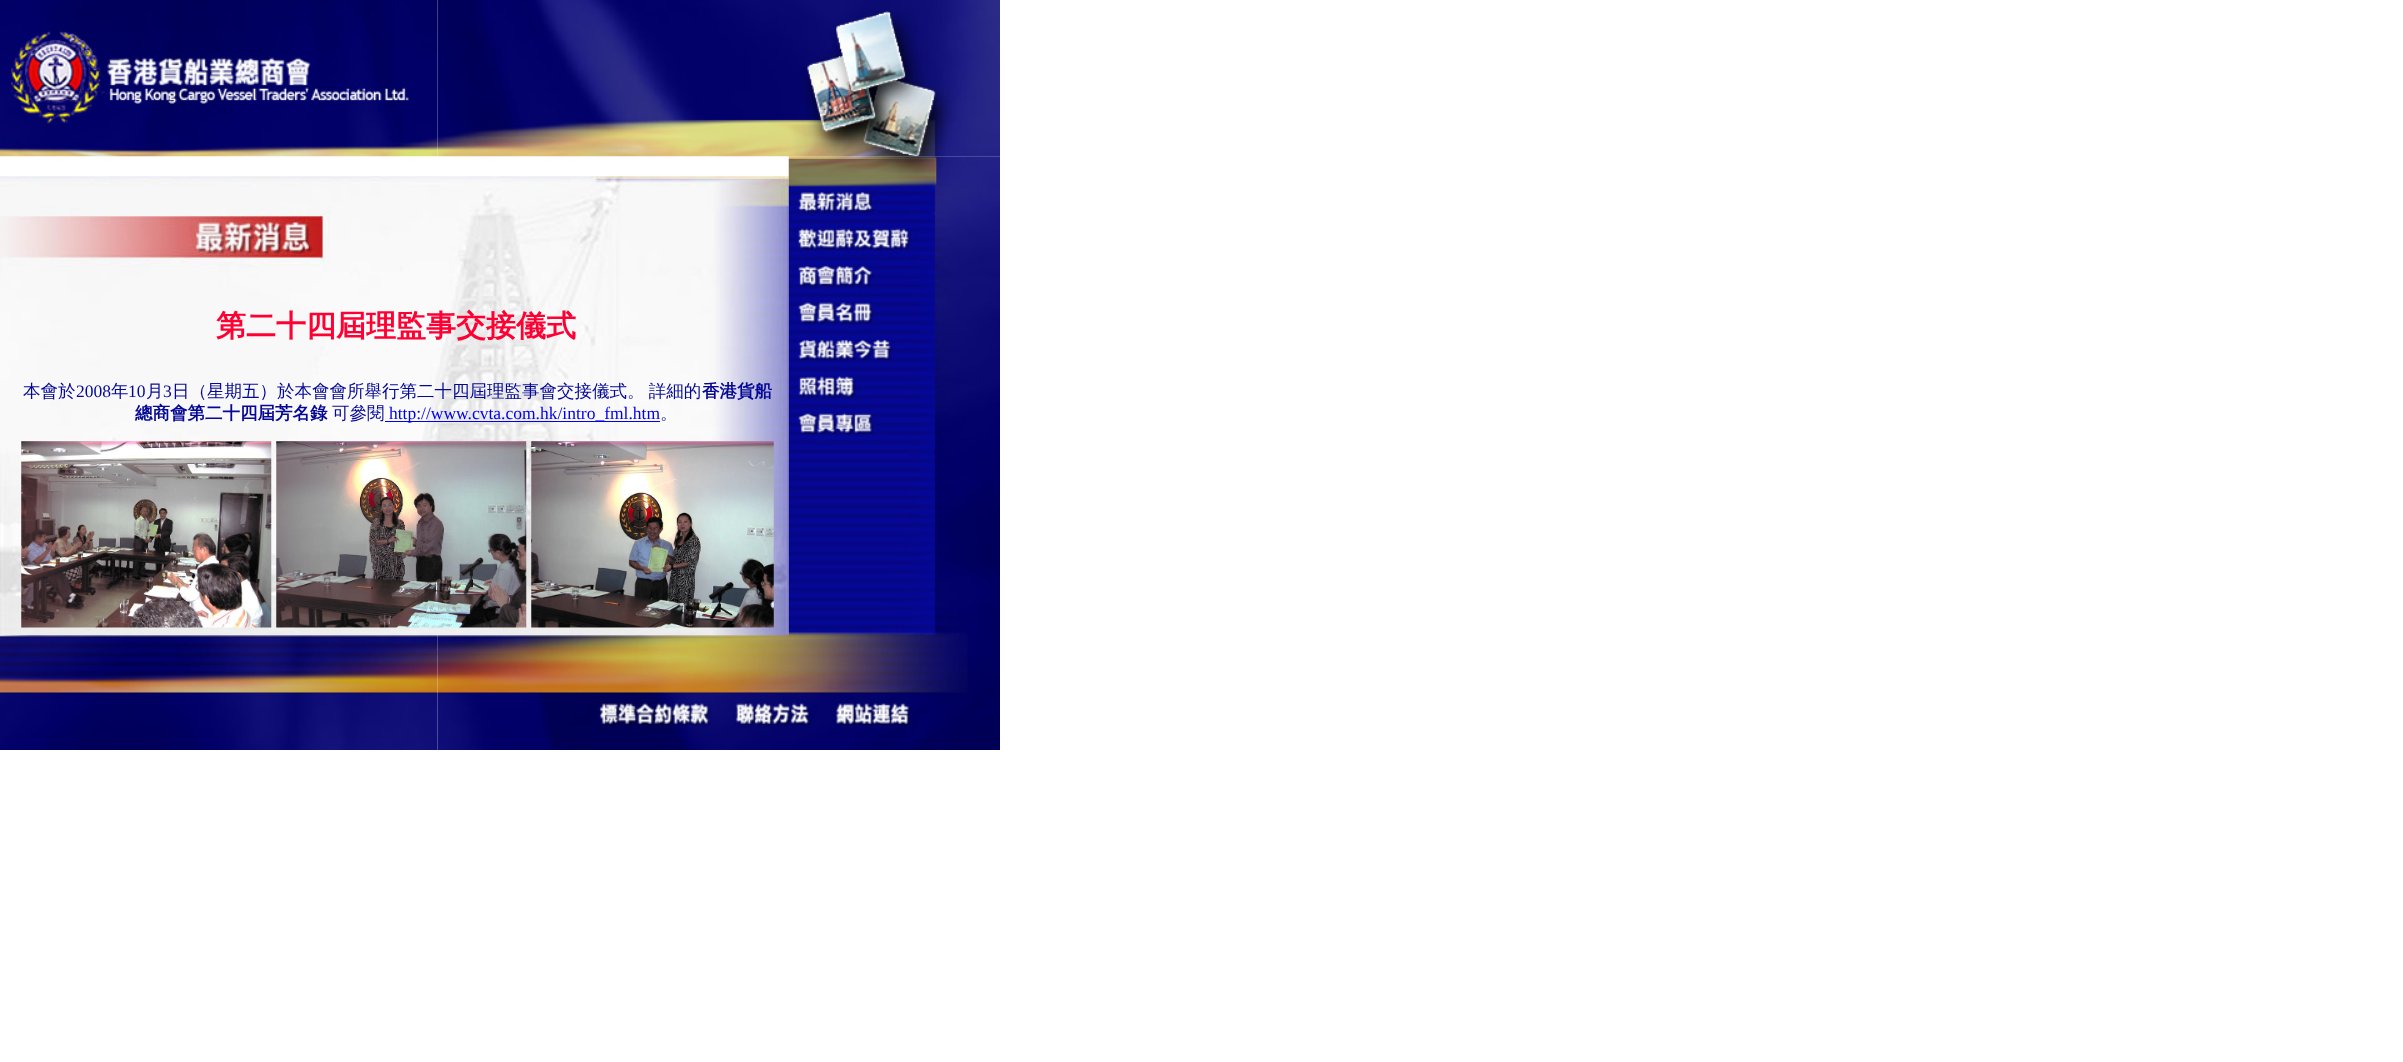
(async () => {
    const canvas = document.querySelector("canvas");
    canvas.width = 2403;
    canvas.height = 1062;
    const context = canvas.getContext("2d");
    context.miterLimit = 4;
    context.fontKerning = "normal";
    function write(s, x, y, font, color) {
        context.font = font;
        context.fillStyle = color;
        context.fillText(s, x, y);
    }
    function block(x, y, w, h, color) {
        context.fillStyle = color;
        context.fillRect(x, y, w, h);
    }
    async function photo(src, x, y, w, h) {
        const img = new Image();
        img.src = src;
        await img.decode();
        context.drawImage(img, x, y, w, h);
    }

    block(0, 0, 2403, 1062, "rgb(255, 255, 255)");
    await photo("media/1.png", 0, 0, 438, 157);
    await photo("media/2.png", 437, 0, 563, 157);
    await photo("media/3.png", 0, 176, 789, 479);
    write("第二十四屆理監事交接儀式", 216, 336, "bold 30px WenQuanYi Zen Hei", "rgb(255, 0, 51)");
    write("本會於", 23, 397, "500 17.5px WenQuanYi Zen Hei", "rgb(5, 8, 149)");
    write("2008", 76, 397, "17.5px Liberation Serif", "rgb(5, 8, 149)");
    write("年", 111, 397, "500 17.5px WenQuanYi Zen Hei", "rgb(5, 8, 149)");
    write("10", 128, 397, "17.5px Liberation Serif", "rgb(5, 8, 149)");
    write("月", 146, 397, "500 17.5px WenQuanYi Zen Hei", "rgb(5, 8, 149)");
    write("3", 163, 397, "17.5px Liberation Serif", "rgb(5, 8, 149)");
    context.wordSpacing = "-1px";
    write("日（星期五）於本會會所舉行第二十四屆理監事會交接儀式。 詳細的", 172, 397, "500 17.5px WenQuanYi Zen Hei", "rgb(5, 8, 149)");
    context.wordSpacing = "0px";
    write("香港貨船", 702, 397, "bold 17.5px WenQuanYi Zen Hei", "rgb(5, 8, 149)");
    write("總商會第二十四屆芳名錄", 135, 419, "bold 17.5px WenQuanYi Zen Hei", "rgb(5, 8, 149)");
    write("可參閱", 332, 419, "500 17.5px WenQuanYi Zen Hei", "rgb(5, 8, 149)");
    block(385, 421, 275, 1, "rgb(0, 0, 238)");
    write("http://www.cvta.com.hk/intro_fml.htm", 389, 419, "17.5px Liberation Serif", "rgb(0, 0, 238)");
    write("。", 660, 419, "500 17.5px WenQuanYi Zen Hei", "rgb(5, 8, 149)");
    await photo("media/4.png", 21, 441, 251, 187);
    await photo("media/5.png", 276, 441, 251, 187);
    await photo("media/6.png", 531, 441, 243, 187);
    await photo("media/7.png", 788, 156, 212, 479);
    await photo("media/8.png", 0, 635, 438, 115);
    await photo("media/9.png", 437, 635, 563, 115);
})();
